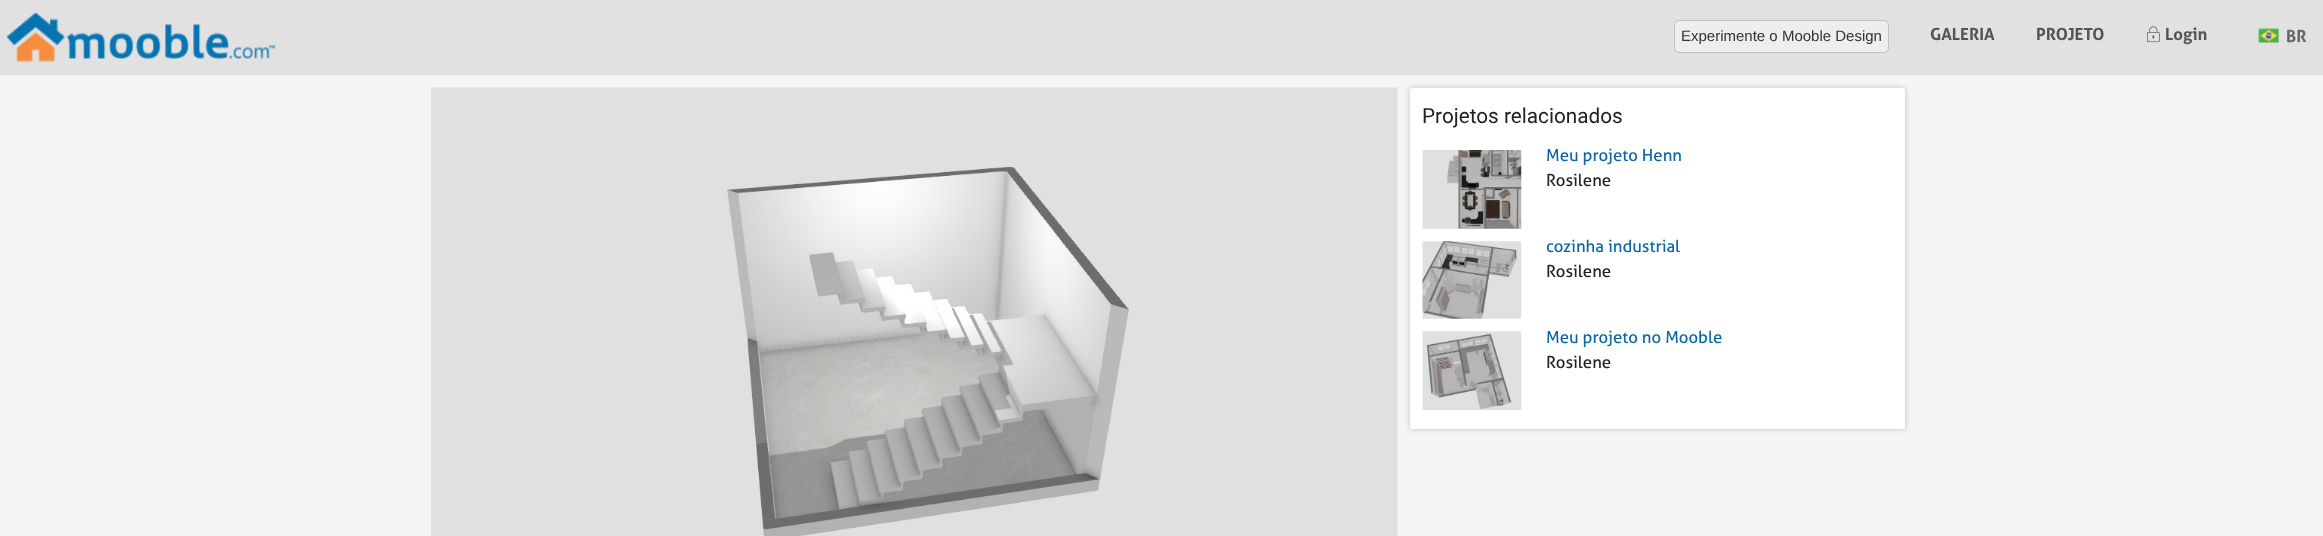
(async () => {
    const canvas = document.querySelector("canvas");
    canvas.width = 2323;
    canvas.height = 536;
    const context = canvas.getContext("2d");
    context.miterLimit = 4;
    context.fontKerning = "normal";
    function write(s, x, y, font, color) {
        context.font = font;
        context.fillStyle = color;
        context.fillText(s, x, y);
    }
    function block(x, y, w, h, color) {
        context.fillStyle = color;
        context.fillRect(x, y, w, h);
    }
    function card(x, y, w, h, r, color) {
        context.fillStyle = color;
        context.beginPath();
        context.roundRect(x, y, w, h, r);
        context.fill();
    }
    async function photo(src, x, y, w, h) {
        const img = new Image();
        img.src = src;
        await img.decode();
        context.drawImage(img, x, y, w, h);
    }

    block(0, 0, 2323, 536, "rgb(245, 245, 245)");
    block(0, 0, 2323, 74, "rgb(225, 225, 225)");
    block(0, 74, 2323, 1, "rgb(216, 216, 216)");
    await photo("media/1.png", 6, 13, 270, 49);
    context.fillStyle = "rgb(238, 238, 238)";
    context.beginPath();
    context.roundRect(1674.5, 20.5, 214, 32, 4.5);
    context.fill();
    context.strokeStyle = "rgb(194, 194, 194)";
    context.stroke();
    write("Experimente o Mooble Design", 1681, 41, "15px Liberation Sans", "rgb(51, 51, 51)");
    write("GALERIA", 1930, 40, "bold 16.75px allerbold", "rgb(85, 85, 85)");
    write("PROJETO", 2036, 40, "bold 16.75px allerbold", "rgb(85, 85, 85)");
    await photo("media/2.png", 2147, 26, 13, 17);
    write("Login", 2165, 40, "bold 16.75px allerbold", "rgb(85, 85, 85)");
    await photo("media/3.png", 2258, 28, 21, 15);
    write("BR", 2286, 42, "bold 16.75px allerbold", "rgb(102, 102, 102)");
    await photo("media/4.png", 431, 87, 967, 449);
    context.fillStyle = "rgba(0, 0, 0, 0.2)";
    context.filter = "blur(3px)";
    context.beginPath();
    context.roundRect(1410, 88, 495, 341, 2.5);
    context.fill();
    context.filter = "none";
    card(1410, 88, 495, 341, 2.5, "rgb(255, 255, 255)");
    write("Projetos relacionados", 1422, 123, "20.75px Roboto", "rgb(34, 34, 34)");
    await photo("media/5.png", 1422, 150, 100, 79);
    write("Meu projeto Henn", 1546, 161, "16.75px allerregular", "rgb(9, 103, 163)");
    write("Rosilene", 1546, 186, "16.75px allerregular", "rgb(34, 34, 34)");
    await photo("media/6.png", 1422, 241, 100, 78);
    write("cozinha industrial", 1546, 252, "16.75px allerregular", "rgb(9, 103, 163)");
    write("Rosilene", 1546, 277, "16.75px allerregular", "rgb(34, 34, 34)");
    await photo("media/7.png", 1422, 331, 100, 79);
    write("Meu projeto no Mooble", 1546, 343, "16.75px allerregular", "rgb(9, 103, 163)");
    write("Rosilene", 1546, 368, "16.75px allerregular", "rgb(34, 34, 34)");
})();
